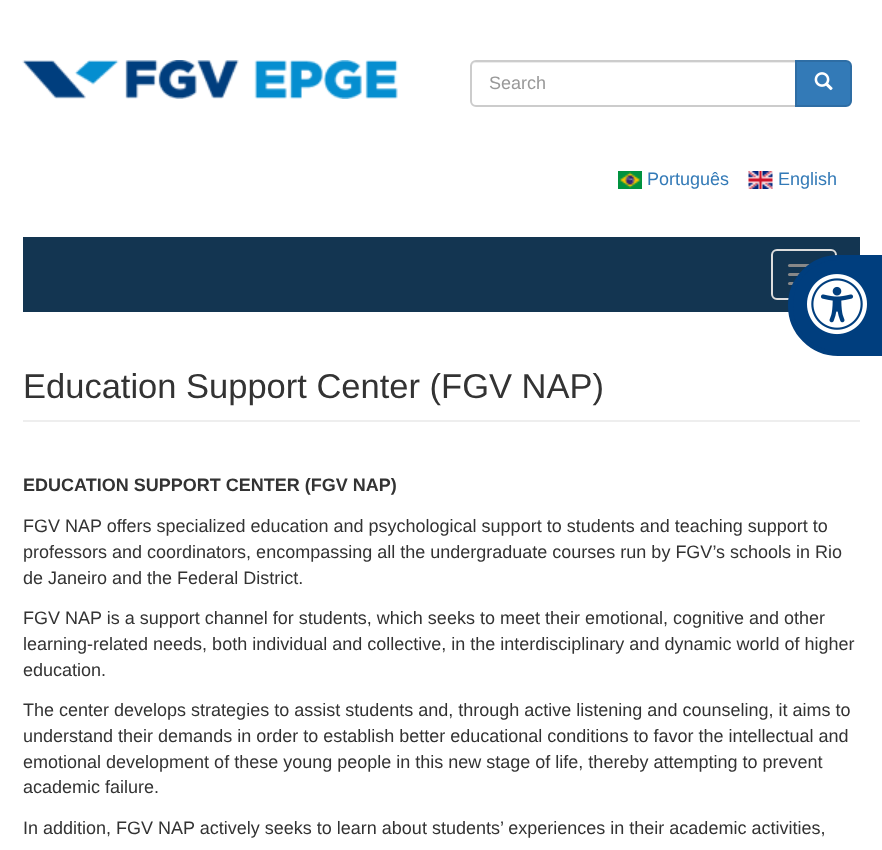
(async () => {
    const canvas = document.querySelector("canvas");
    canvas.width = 882;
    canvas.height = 850;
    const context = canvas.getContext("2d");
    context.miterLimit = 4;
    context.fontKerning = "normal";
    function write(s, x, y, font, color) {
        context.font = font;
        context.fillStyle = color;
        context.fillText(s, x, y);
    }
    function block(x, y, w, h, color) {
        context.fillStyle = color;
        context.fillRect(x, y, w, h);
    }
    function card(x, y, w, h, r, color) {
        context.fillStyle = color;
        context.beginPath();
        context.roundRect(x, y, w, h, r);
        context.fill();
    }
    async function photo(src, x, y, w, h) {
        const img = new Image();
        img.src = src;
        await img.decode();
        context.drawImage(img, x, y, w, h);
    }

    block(0, 0, 882, 850, "rgb(255, 255, 255)");
    await photo("media/1.png", 22, 60, 376, 39);
    context.fillStyle = "rgb(236, 236, 236)";
    context.beginPath();
    context.moveTo(476, 63);
    context.lineTo(795, 63);
    context.lineTo(795, 62);
    context.lineTo(476, 62);
    context.bezierCurveTo(473, 62, 471, 65, 471, 68);
    context.bezierCurveTo(471, 65, 473, 63, 476, 63);
    context.closePath();
    context.fill();
    context.beginPath();
    context.roundRect(471, 61, 325, 45, [5, 0, 0, 5]);
    context.strokeStyle = "rgb(204, 204, 204)";
    context.lineWidth = 2;
    context.stroke();
    write("Search", 489, 89, "18px Liberation Sans", "rgb(153, 153, 153)");
    context.fillStyle = "rgb(51, 122, 183)";
    context.beginPath();
    context.roundRect(796, 61, 55, 45, [0, 5, 5, 0]);
    context.fill();
    context.strokeStyle = "rgb(46, 109, 164)";
    context.stroke();
    await photo("media/2.png", 814, 72, 19, 19);
    await photo("media/3.png", 618, 171, 24, 18);
    write("Português", 647, 185, "18px Liberation Sans", "rgb(51, 122, 183)");
    await photo("media/4.png", 748, 171, 25, 18);
    write("English", 778, 185, "18px Liberation Sans", "rgb(51, 122, 183)");
    block(23, 237, 837, 75, "rgb(19, 53, 81)");
    context.beginPath();
    context.roundRect(772, 250, 64, 49, 5);
    context.strokeStyle = "rgb(221, 221, 221)";
    context.stroke();
    card(788, 264, 33, 3, 1.5, "rgb(136, 136, 136)");
    card(788, 273, 33, 3, 1.5, "rgb(136, 136, 136)");
    card(788, 282, 33, 3, 1.5, "rgb(136, 136, 136)");
    block(23, 420, 837, 2, "rgb(238, 238, 238)");
    write("Education Support Center (FGV NAP)", 23, 398, "34.5px Liberation Sans", "rgb(51, 51, 51)");
    context.fillStyle = "rgb(0, 62, 126)";
    context.beginPath();
    context.moveTo(838, 257.5);
    context.lineTo(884.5, 257.5);
    context.lineTo(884.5, 353.5);
    context.lineTo(838, 353.5);
    context.bezierCurveTo(812, 353.5, 790.5, 332, 790.5, 306);
    context.lineTo(790.5, 305);
    context.bezierCurveTo(790.5, 279, 812, 257.5, 838, 257.5);
    context.closePath();
    context.fill();
    context.strokeStyle = "rgb(0, 62, 126)";
    context.lineWidth = 5;
    context.stroke();
    await photo("media/5.png", 807, 274, 60, 61);
    write("EDUCATION SUPPORT CENTER (FGV NAP)", 23, 491, "bold 18px Liberation Sans", "rgb(51, 51, 51)");
    write("FGV NAP offers specialized education and psychological support to students and teaching support to", 23, 532, "18px Liberation Sans", "rgb(51, 51, 51)");
    write("professors and coordinators, encompassing all the undergraduate courses run by FGV’s schools in Rio", 23, 558, "18px Liberation Sans", "rgb(51, 51, 51)");
    write("de Janeiro and the Federal District.", 23, 584, "18px Liberation Sans", "rgb(51, 51, 51)");
    write("FGV NAP is a support channel for students, which seeks to meet their emotional, cognitive and other", 23, 624, "18px Liberation Sans", "rgb(51, 51, 51)");
    write("learning-related needs, both individual and collective, in the interdisciplinary and dynamic world of higher", 23, 650, "18px Liberation Sans", "rgb(51, 51, 51)");
    write("education.", 23, 676, "18px Liberation Sans", "rgb(51, 51, 51)");
    write("The center develops strategies to assist students and, through active listening and counseling, it aims to", 23, 716, "18px Liberation Sans", "rgb(51, 51, 51)");
    write("understand their demands in order to establish better educational conditions to favor the intellectual and", 23, 742, "18px Liberation Sans", "rgb(51, 51, 51)");
    write("emotional development of these young people in this new stage of life, thereby attempting to prevent", 23, 768, "18px Liberation Sans", "rgb(51, 51, 51)");
    write("academic failure.", 23, 793, "18px Liberation Sans", "rgb(51, 51, 51)");
    write("In addition, FGV NAP actively seeks to learn about students’ experiences in their academic activities,", 23, 834, "18px Liberation Sans", "rgb(51, 51, 51)");
})();
